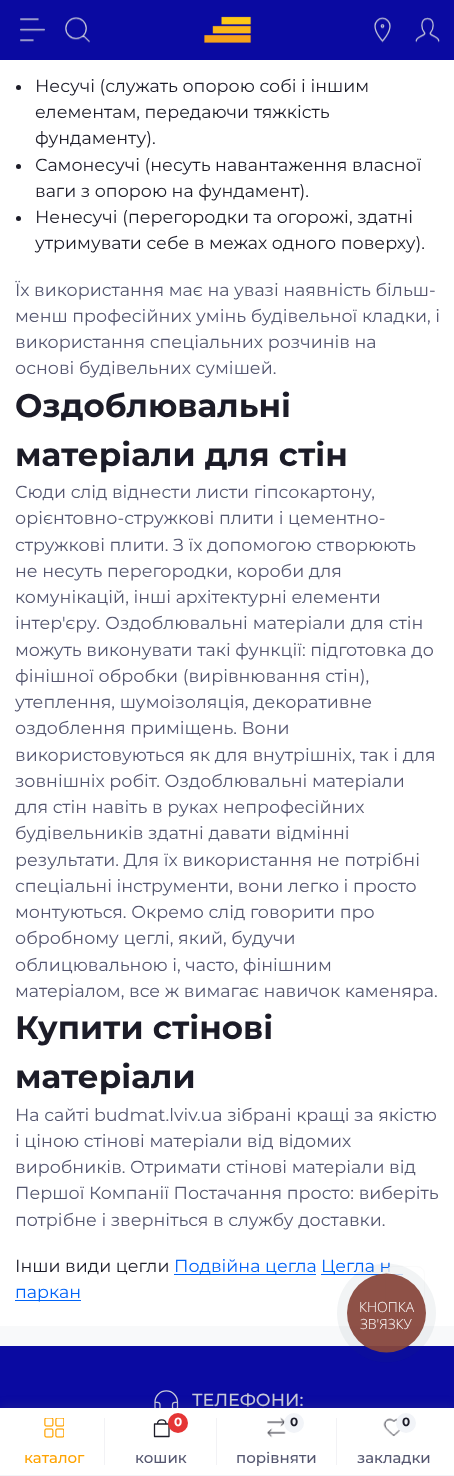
(async () => {
    const canvas = document.querySelector("canvas");
    canvas.width = 454;
    canvas.height = 1476;
    const context = canvas.getContext("2d");
    context.miterLimit = 4;
    context.fontKerning = "normal";
    function write(s, x, y, font, color) {
        context.font = font;
        context.fillStyle = color;
        context.fillText(s, x, y);
    }
    function block(x, y, w, h, color) {
        context.fillStyle = color;
        context.fillRect(x, y, w, h);
    }
    async function photo(src, x, y, w, h) {
        const img = new Image();
        img.src = src;
        await img.decode();
        context.drawImage(img, x, y, w, h);
    }

    block(0, 0, 454, 1476, "rgb(248, 249, 250)");
    block(0, 0, 454, 60, "rgb(10, 10, 161)");
    await photo("media/1.png", 20, 18, 25, 24);
    await photo("media/2.png", 65, 17, 25, 26);
    await photo("media/3.png", 204, 16, 48, 27);
    await photo("media/4.png", 374, 17, 17, 26);
    await photo("media/5.png", 415, 17, 25, 26);
    block(0, 60, 454, 1266, "rgb(255, 255, 255)");
    context.fillStyle = "rgb(28, 28, 40)";
    context.beginPath();
    context.arc(18.5, 87.5, 2.5, 0, Math.PI * 2);
    context.fill();
    write("Несучі (служать опорою собі і іншим", 35, 92, "17.5px Montserrat", "rgb(28, 28, 40)");
    write("елементам, передаючи тяжкість", 35, 118, "17.5px Montserrat", "rgb(28, 28, 40)");
    write("фундаменту).", 35, 144, "17.5px Montserrat", "rgb(28, 28, 40)");
    context.beginPath();
    context.arc(18.5, 166.5, 2.5, 0, Math.PI * 2);
    context.fill();
    write("Самонесучі (несуть навантаження власної", 35, 171, "17.5px Montserrat", "rgb(28, 28, 40)");
    write("ваги з опорою на фундамент).", 35, 197, "17.5px Montserrat", "rgb(28, 28, 40)");
    context.beginPath();
    context.arc(18.5, 218.5, 2.5, 0, Math.PI * 2);
    context.fill();
    write("Ненесучі (перегородки та огорожі, здатні", 35, 223, "17.5px Montserrat", "rgb(28, 28, 40)");
    write("утримувати себе в межах одного поверху).", 35, 249, "17.5px Montserrat", "rgb(28, 28, 40)");
    write("Їх використання має на увазі наявність більш-", 15, 296, "17.5px Montserrat", "rgb(85, 87, 112)");
    write("менш професійних умінь будівельної кладки, і", 15, 322, "17.5px Montserrat", "rgb(85, 87, 112)");
    write("використання спеціальних розчинів на", 15, 348, "17.5px Montserrat", "rgb(85, 87, 112)");
    write("основі будівельних сумішей.", 15, 374, "17.5px Montserrat", "rgb(85, 87, 112)");
    write("Оздоблювальні", 15, 417, "bold 32.5px Montserrat", "rgb(28, 28, 40)");
    write("матеріали для стін", 15, 466, "bold 32.5px Montserrat", "rgb(28, 28, 40)");
    write("Сюди слід віднести листи гіпсокартону,", 15, 498, "17.5px Montserrat", "rgb(85, 87, 112)");
    write("орієнтовно-стружкові плити і цементно-", 15, 524, "17.5px Montserrat", "rgb(85, 87, 112)");
    write("стружкові плити. З їх допомогою створюють", 15, 551, "17.5px Montserrat", "rgb(85, 87, 112)");
    write("не несуть перегородки, короби для", 15, 577, "17.5px Montserrat", "rgb(85, 87, 112)");
    write("комунікацій, інші архітектурні елементи", 15, 603, "17.5px Montserrat", "rgb(85, 87, 112)");
    context.wordSpacing = "0.5px";
    write("інтер'єру. Оздоблювальні матеріали для стін", 15, 629, "17.5px Montserrat", "rgb(85, 87, 112)");
    context.wordSpacing = "0px";
    write("можуть виконувати такі функції: підготовка до", 15, 656, "17.5px Montserrat", "rgb(85, 87, 112)");
    write("фінішної обробки (вирівнювання стін),", 15, 682, "17.5px Montserrat", "rgb(85, 87, 112)");
    write("утеплення, шумоізоляція, декоративне", 15, 708, "17.5px Montserrat", "rgb(85, 87, 112)");
    write("оздоблення приміщень. Вони", 15, 734, "17.5px Montserrat", "rgb(85, 87, 112)");
    write("використовуються як для внутрішніх, так і для", 15, 761, "17.5px Montserrat", "rgb(85, 87, 112)");
    write("зовнішніх робіт. Оздоблювальні матеріали", 15, 787, "17.5px Montserrat", "rgb(85, 87, 112)");
    write("для стін навіть в руках непрофесійних", 15, 813, "17.5px Montserrat", "rgb(85, 87, 112)");
    write("будівельників здатні давати відмінні", 15, 839, "17.5px Montserrat", "rgb(85, 87, 112)");
    write("результати. Для їх використання не потрібні", 15, 866, "17.5px Montserrat", "rgb(85, 87, 112)");
    write("спеціальні інструменти, вони легко і просто", 15, 892, "17.5px Montserrat", "rgb(85, 87, 112)");
    write("монтуються. Окремо слід говорити про", 15, 918, "17.5px Montserrat", "rgb(85, 87, 112)");
    write("обробному цеглі, який, будучи", 15, 944, "17.5px Montserrat", "rgb(85, 87, 112)");
    write("облицювальною і, часто, фінішним", 15, 971, "17.5px Montserrat", "rgb(85, 87, 112)");
    write("матеріалом, все ж вимагає навичок каменяра.", 15, 997, "17.5px Montserrat", "rgb(85, 87, 112)");
    write("Купити стінові", 15, 1039, "bold 32.5px Montserrat", "rgb(28, 28, 40)");
    write("матеріали", 15, 1088, "bold 32.5px Montserrat", "rgb(28, 28, 40)");
    write("На сайті budmat.lviv.ua зібрані кращі за якістю", 15, 1121, "17.5px Montserrat", "rgb(85, 87, 112)");
    write("і ціною стінові матеріали від відомих", 15, 1147, "17.5px Montserrat", "rgb(85, 87, 112)");
    write("виробників. Отримати стінові матеріали від", 15, 1173, "17.5px Montserrat", "rgb(85, 87, 112)");
    write("Першої Компанії Постачання просто: виберіть", 15, 1199, "17.5px Montserrat", "rgb(85, 87, 112)");
    write("потрібне і зверніться в службу доставки.", 15, 1226, "17.5px Montserrat", "rgb(85, 87, 112)");
    write("Інши види цегли", 15, 1272, "17.5px Montserrat", "rgb(28, 28, 40)");
    block(174, 1274, 142, 1, "rgb(0, 99, 247)");
    write("Подвійна цегла", 174, 1272, "17.5px Montserrat", "rgb(0, 99, 247)");
    block(321, 1274, 82, 1, "rgb(0, 99, 247)");
    write("Цегла н", 321, 1272, "17.5px Montserrat", "rgb(0, 99, 247)");
    block(15, 1300, 66, 1, "rgb(0, 99, 247)");
    write("паркан", 15, 1298, "17.5px Montserrat", "rgb(0, 99, 247)");
    context.fillStyle = "rgba(255, 255, 255, 0.8)";
    context.beginPath();
    context.roundRect(385.5, 1266.5, 39, 39, 7.5);
    context.fill();
    context.strokeStyle = "rgb(251, 251, 251)";
    context.stroke();
    block(0, 1346, 454, 62, "rgb(10, 10, 161)");
    context.fillStyle = "rgba(42, 64, 93, 0.06)";
    context.beginPath();
    context.arc(386.5, 1313, 49.5, 0, Math.PI * 2);
    context.fill();
    context.fillStyle = "rgba(135, 70, 60, 0.94)";
    context.beginPath();
    context.arc(386.5, 1313, 39.5, 0, Math.PI * 2);
    context.fill();
    write("КНОПКА", 359, 1312, "300 14px Open Sans", "rgb(255, 255, 255)");
    write("ЗВ'ЯЗКУ", 360, 1329, "300 14px Open Sans", "rgb(255, 255, 255)");
    await photo("media/6.png", 154, 1390, 25, 18);
    write("ТЕЛЕФОНИ:", 192, 1406, "500 17.5px Montserrat", "rgb(199, 201, 217)");
    context.fillStyle = "rgba(96, 97, 112, 0.16)";
    context.filter = "blur(5px)";
    context.beginPath();
    context.rect(0, 1405, 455, 69);
    context.fill();
    context.filter = "none";
    block(0, 1408, 454, 67, "rgb(255, 255, 255)");
    block(0, 1475, 454, 1, "rgb(242, 244, 248)");
    await photo("media/7.png", 44, 1418, 20, 20);
    write("каталог", 24, 1463, "500 15px Montserrat", "rgb(255, 163, 0)");
    block(104, 1418, 1, 47, "rgb(242, 242, 245)");
    context.beginPath();
    context.moveTo(154.5, 1424);
    context.lineTo(169, 1424);
    context.lineTo(169, 1436.5);
    context.lineTo(154.5, 1436.5);
    context.closePath();
    context.moveTo(157.5, 1424);
    context.bezierCurveTo(157.5, 1418.5, 166, 1418.5, 166, 1424);
    context.strokeStyle = "rgb(28, 28, 40)";
    context.lineWidth = 1.3;
    context.lineCap = "round";
    context.lineJoin = "round";
    context.stroke();
    context.fillStyle = "rgb(229, 53, 53)";
    context.beginPath();
    context.arc(178, 1423, 10, 0, Math.PI * 2);
    context.fill();
    write("0", 174, 1426, "bold 12px Montserrat", "rgb(255, 255, 255)");
    write("кошик", 135, 1463, "500 15px Montserrat", "rgb(85, 87, 112)");
    block(216, 1418, 1, 47, "rgb(242, 242, 245)");
    await photo("media/8.png", 267, 1417, 19, 21);
    context.fillStyle = "rgb(242, 244, 248)";
    context.beginPath();
    context.arc(294, 1423, 10, 0, Math.PI * 2);
    context.fill();
    write("0", 290, 1426, "bold 12px Montserrat", "rgb(28, 28, 40)");
    write("порівняти", 236, 1463, "500 15px Montserrat", "rgb(85, 87, 112)");
    block(336, 1418, 1, 47, "rgb(242, 242, 245)");
    await photo("media/9.png", 383, 1418, 17, 19);
    context.fillStyle = "rgb(242, 244, 248)";
    context.beginPath();
    context.arc(406, 1423, 10, 0, Math.PI * 2);
    context.fill();
    write("0", 402, 1426, "bold 12px Montserrat", "rgb(28, 28, 40)");
    write("закладки", 357, 1463, "500 15px Montserrat", "rgb(85, 87, 112)");
})();
